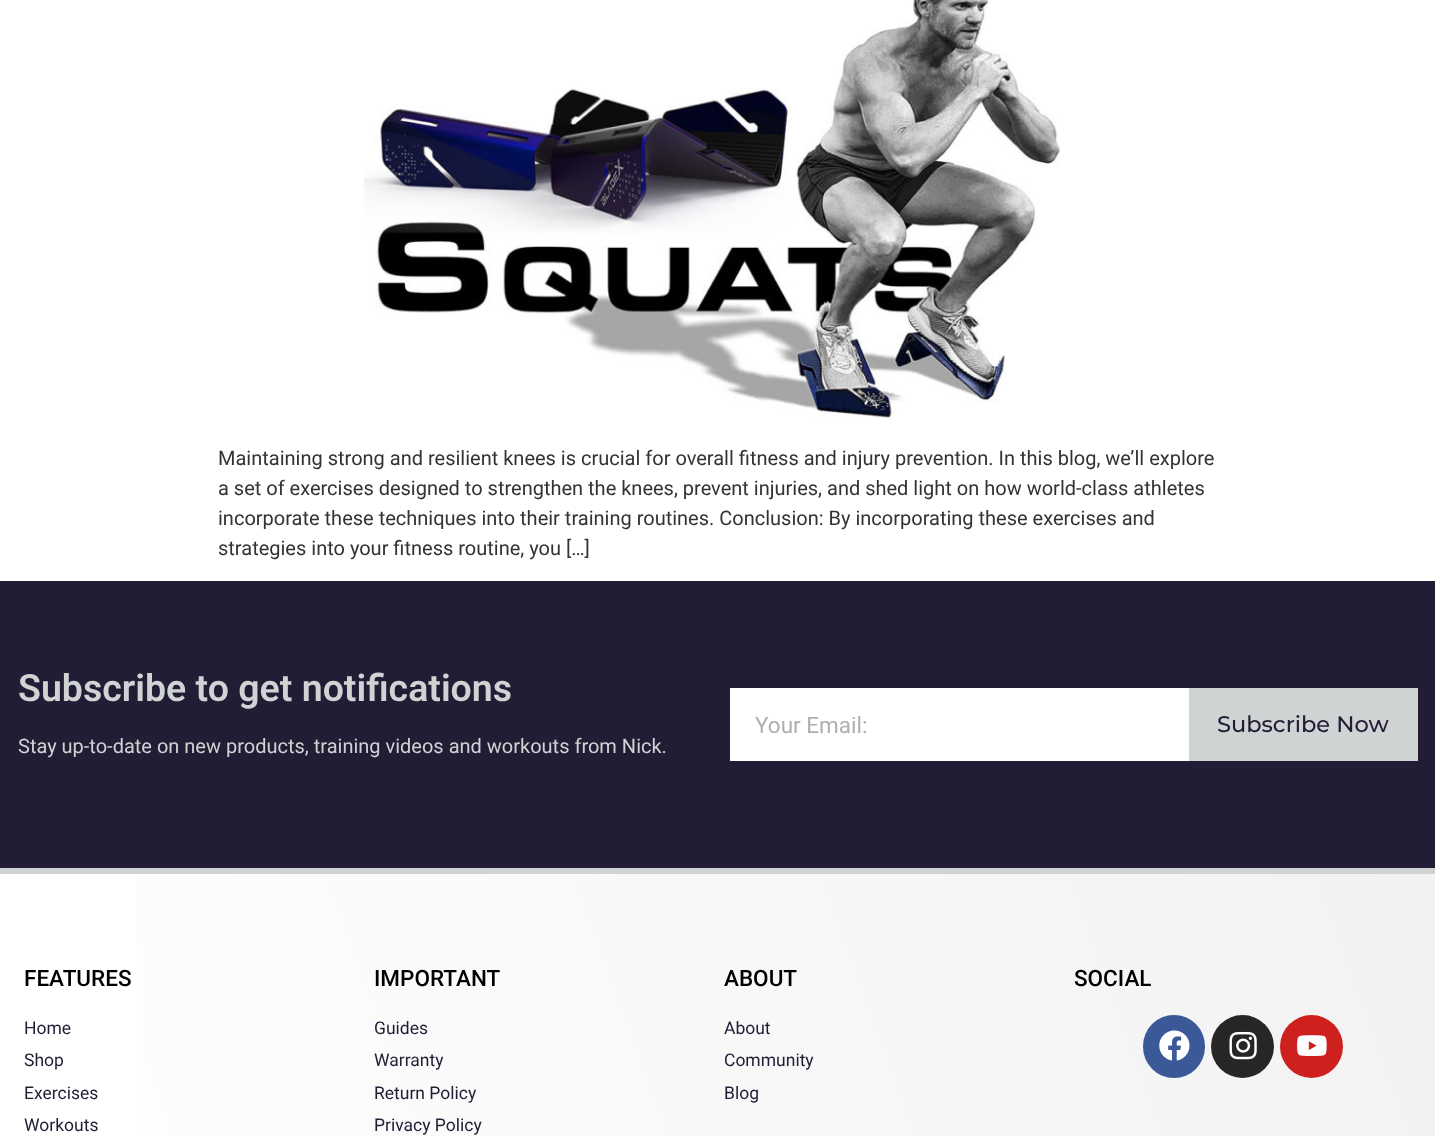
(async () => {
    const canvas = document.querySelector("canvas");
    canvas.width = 1435;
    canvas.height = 1136;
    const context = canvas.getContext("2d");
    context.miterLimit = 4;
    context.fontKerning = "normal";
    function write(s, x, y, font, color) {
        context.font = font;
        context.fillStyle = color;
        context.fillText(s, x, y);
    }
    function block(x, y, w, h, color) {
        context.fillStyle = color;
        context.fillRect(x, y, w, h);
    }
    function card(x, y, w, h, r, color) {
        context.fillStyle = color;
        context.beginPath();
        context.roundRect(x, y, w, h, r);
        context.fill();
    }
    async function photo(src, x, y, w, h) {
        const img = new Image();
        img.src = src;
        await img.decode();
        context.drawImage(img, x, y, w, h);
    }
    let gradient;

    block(0, 0, 1435, 1136, "rgb(255, 255, 255)");
    await photo("media/1.png", 363, 0, 698, 418);
    write("Maintaining strong and resilient knees is crucial for overall fitness and injury prevention. In this blog, we’ll explore", 218, 465, "20px Roboto", "rgb(51, 51, 51)");
    write("a set of exercises designed to strengthen the knees, prevent injuries, and shed light on how world-class athletes", 218, 495, "20px Roboto", "rgb(51, 51, 51)");
    write("incorporate these techniques into their training routines. Conclusion: By incorporating these exercises and", 218, 525, "20px Roboto", "rgb(51, 51, 51)");
    write("strategies into your fitness routine, you […]", 218, 555, "20px Roboto", "rgb(51, 51, 51)");
    block(0, 581, 1435, 287, "rgb(34, 28, 53)");
    write("Subscribe to get notifications", 18, 701, "600 37.5px Roboto", "rgb(208, 211, 212)");
    write("Stay up-to-date on new products, training videos and workouts from Nick.", 18, 753, "20px Roboto", "rgb(208, 211, 212)");
    block(730, 688, 459, 73, "rgb(255, 255, 255)");
    write("Your Email:", 755, 733, "22.5px Roboto", "rgb(175, 175, 175)");
    block(1189, 688, 229, 73, "rgb(208, 211, 212)");
    write("Subscribe Now", 1217, 732, "500 22.5px Montserrat", "rgb(34, 28, 53)");
    gradient = context.createLinearGradient(1427, 851, 8, 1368);
    gradient.addColorStop(0, "rgb(242, 242, 242)");
    gradient.addColorStop(1, "rgb(255, 255, 255)");
    context.fillStyle = gradient;
    context.fillRect(137, 874, 1298, 262);
    block(0, 868, 1435, 6, "rgb(208, 211, 212)");
    write("FEATURES", 24, 986, "500 22.5px Roboto", "rgb(0, 0, 0)");
    write("Home", 24, 1034, "17.5px Roboto", "rgb(34, 28, 53)");
    write("Shop", 24, 1066, "17.5px Roboto", "rgb(34, 28, 53)");
    write("Exercises", 24, 1099, "17.5px Roboto", "rgb(34, 28, 53)");
    write("Workouts", 24, 1131, "17.5px Roboto", "rgb(34, 28, 53)");
    write("IMPORTANT", 374, 986, "500 22.5px Roboto", "rgb(0, 0, 0)");
    write("Guides", 374, 1034, "17.5px Roboto", "rgb(34, 28, 53)");
    write("Warranty", 374, 1066, "17.5px Roboto", "rgb(34, 28, 53)");
    write("Return Policy", 374, 1099, "17.5px Roboto", "rgb(34, 28, 53)");
    write("Privacy Policy", 374, 1131, "17.5px Roboto", "rgb(34, 28, 53)");
    write("ABOUT", 724, 986, "500 22.5px Roboto", "rgb(0, 0, 0)");
    write("About", 724, 1034, "17.5px Roboto", "rgb(34, 28, 53)");
    write("Community", 724, 1066, "17.5px Roboto", "rgb(34, 28, 53)");
    write("Blog", 724, 1099, "17.5px Roboto", "rgb(34, 28, 53)");
    write("SOCIAL", 1074, 986, "500 22.5px Roboto", "rgb(0, 0, 0)");
    card(1143, 1015, 62, 63, 31, "rgb(59, 89, 152)");
    await photo("media/2.png", 1159, 1030, 31, 31);
    context.fillStyle = "rgb(38, 38, 38)";
    context.beginPath();
    context.arc(1242.5, 1046.5, 31.5, 0, Math.PI * 2);
    context.fill();
    await photo("media/3.png", 1229, 1031, 28, 29);
    context.fillStyle = "rgb(205, 32, 31)";
    context.beginPath();
    context.arc(1311.5, 1046.5, 31.5, 0, Math.PI * 2);
    context.fill();
    await photo("media/4.png", 1297, 1035, 30, 22);
})();
